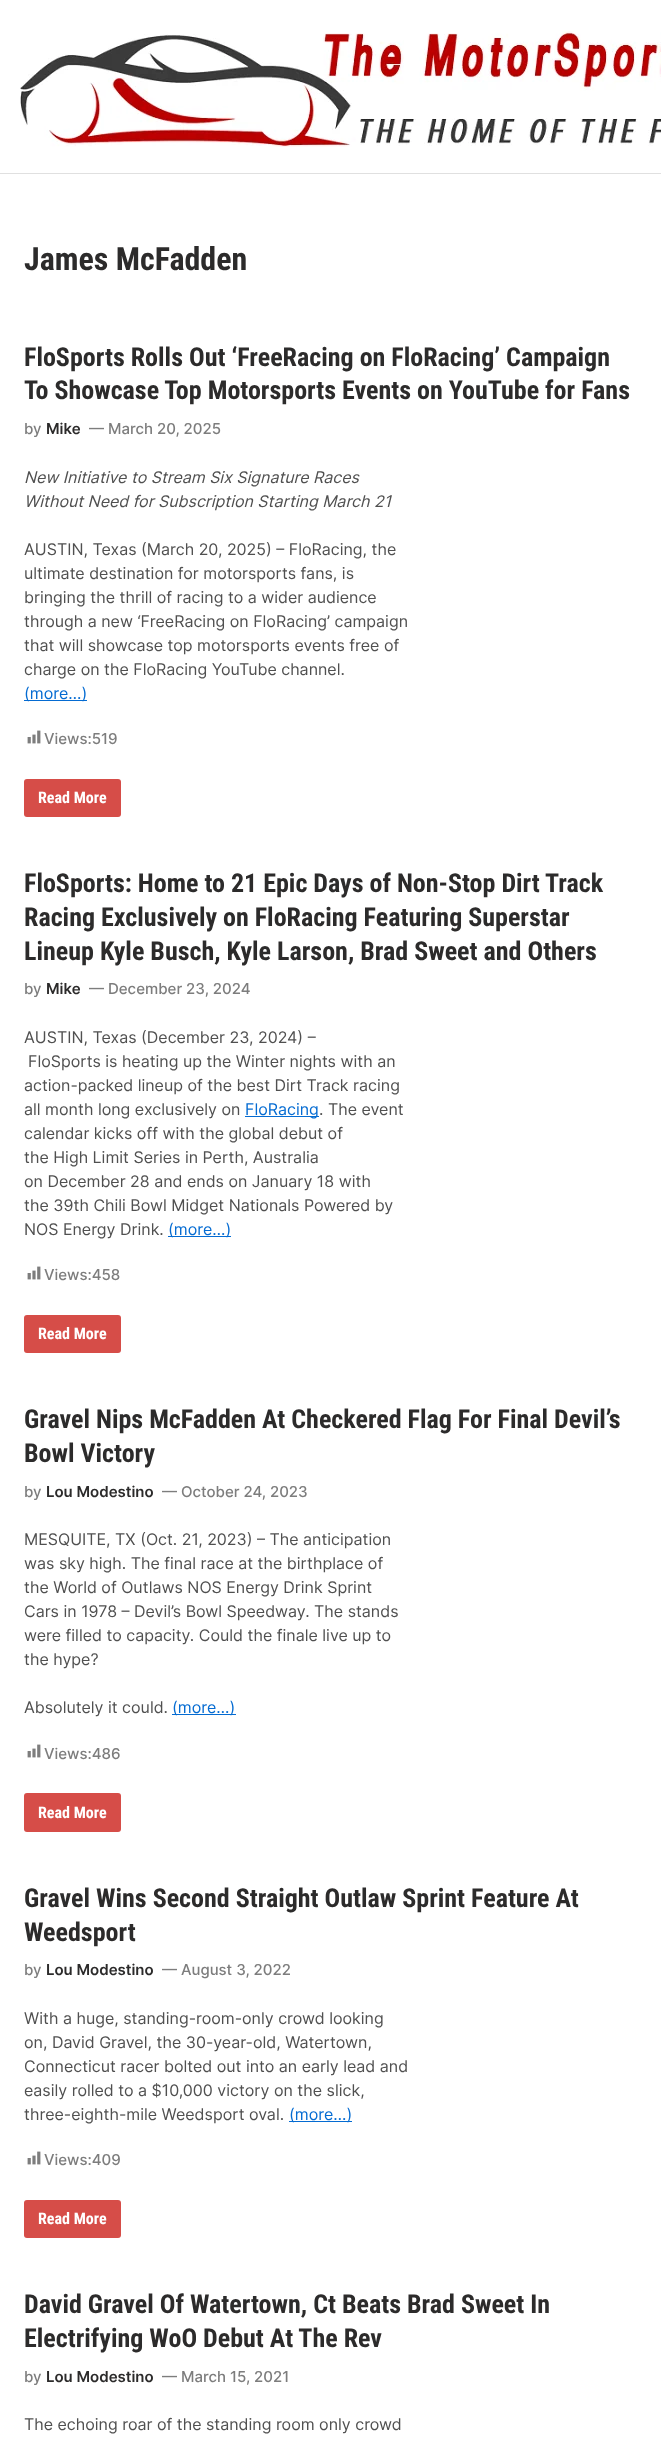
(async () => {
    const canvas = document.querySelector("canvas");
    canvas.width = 661;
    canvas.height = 2442;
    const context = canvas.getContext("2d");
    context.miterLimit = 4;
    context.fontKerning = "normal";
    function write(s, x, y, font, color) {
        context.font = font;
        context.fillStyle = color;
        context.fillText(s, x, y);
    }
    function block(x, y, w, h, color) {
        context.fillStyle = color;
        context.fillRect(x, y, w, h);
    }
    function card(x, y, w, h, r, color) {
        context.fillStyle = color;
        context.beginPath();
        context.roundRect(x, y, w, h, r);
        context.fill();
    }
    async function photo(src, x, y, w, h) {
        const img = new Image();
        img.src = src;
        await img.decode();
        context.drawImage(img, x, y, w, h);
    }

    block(0, 0, 661, 2442, "rgb(255, 255, 255)");
    block(0, 173, 661, 1, "rgb(224, 224, 224)");
    await photo("media/1.png", 20, 31, 641, 116);
    write("James McFadden", 24, 270, "bold 32px Roboto Condensed", "rgb(44, 43, 43)");
    write("FloSports Rolls Out ‘FreeRacing on FloRacing’ Campaign", 24, 366, "bold 26px Roboto Condensed", "rgb(44, 43, 43)");
    write("To Showcase Top Motorsports Events on YouTube for Fans", 24, 399, "bold 26px Roboto Condensed", "rgb(44, 43, 43)");
    write("by", 24, 434, "500 15px Inter", "rgb(125, 125, 125)");
    write("Mike", 46, 434, "600 15px Inter", "rgb(44, 43, 43)");
    write("— March 20, 2025", 89, 434, "500 15px Inter", "rgb(125, 125, 125)");
    write("New Initiative to Stream Six Signature Races", 24, 483, "italic 16px Inter", "rgb(80, 80, 80)");
    write("Without Need for Subscription Starting March 21", 24, 507, "italic 16px Inter", "rgb(80, 80, 80)");
    write("AUSTIN, Texas (March 20, 2025) – FloRacing, the", 24, 555, "16px Inter", "rgb(80, 80, 80)");
    write("ultimate destination for motorsports fans, is", 24, 579, "16px Inter", "rgb(80, 80, 80)");
    write("bringing the thrill of racing to a wider audience", 24, 603, "16px Inter", "rgb(80, 80, 80)");
    write("through a new ‘FreeRacing on FloRacing’ campaign", 24, 627, "16px Inter", "rgb(80, 80, 80)");
    write("that will showcase top motorsports events free of", 24, 651, "16px Inter", "rgb(80, 80, 80)");
    write("charge on the FloRacing YouTube channel.", 24, 675, "16px Inter", "rgb(80, 80, 80)");
    block(24, 700, 63, 1, "rgb(4, 107, 210)");
    write("(more…)", 24, 699, "16px Inter", "rgb(4, 107, 210)");
    await photo("media/2.png", 27, 730, 14, 14);
    write("Views:519", 44, 744, "500 15px Inter", "rgb(125, 125, 125)");
    card(24, 779, 97, 38, 3, "rgb(214, 77, 72)");
    write("Read More", 38, 803, "bold 16px Roboto Condensed", "rgb(255, 255, 255)");
    write("FloSports: Home to 21 Epic Days of Non-Stop Dirt Track", 24, 892, "bold 26px Roboto Condensed", "rgb(44, 43, 43)");
    write("Racing Exclusively on FloRacing Featuring Superstar", 24, 926, "bold 26px Roboto Condensed", "rgb(44, 43, 43)");
    write("Lineup Kyle Busch, Kyle Larson, Brad Sweet and Others", 24, 960, "bold 26px Roboto Condensed", "rgb(44, 43, 43)");
    write("by", 24, 994, "500 15px Inter", "rgb(125, 125, 125)");
    write("Mike", 46, 994, "600 15px Inter", "rgb(44, 43, 43)");
    write("— December 23, 2024", 89, 994, "500 15px Inter", "rgb(125, 125, 125)");
    write("AUSTIN, Texas (December 23, 2024) –", 24, 1043, "16px Inter", "rgb(80, 80, 80)");
    write("FloSports is heating up the Winter nights with an", 28, 1067, "16px Inter", "rgb(80, 80, 80)");
    write("action-packed lineup of the best Dirt Track racing", 24, 1091, "16px Inter", "rgb(80, 80, 80)");
    write("all month long exclusively on", 24, 1115, "16px Inter", "rgb(80, 80, 80)");
    block(245, 1116, 74, 1, "rgb(4, 107, 210)");
    write("FloRacing", 245, 1115, "16px Inter", "rgb(4, 107, 210)");
    write(". The event", 319, 1115, "16px Inter", "rgb(80, 80, 80)");
    write("calendar kicks off with the global debut of", 24, 1139, "16px Inter", "rgb(80, 80, 80)");
    write("the High Limit Series in Perth, Australia", 24, 1163, "16px Inter", "rgb(80, 80, 80)");
    write("on December 28 and ends on January 18 with", 24, 1187, "16px Inter", "rgb(80, 80, 80)");
    write("the 39th Chili Bowl Midget Nationals Powered by", 24, 1211, "16px Inter", "rgb(80, 80, 80)");
    write("NOS Energy Drink.", 24, 1235, "16px Inter", "rgb(80, 80, 80)");
    block(168, 1236, 63, 1, "rgb(4, 107, 210)");
    write("(more…)", 168, 1235, "16px Inter", "rgb(4, 107, 210)");
    await photo("media/2.png", 27, 1266, 14, 14);
    write("Views:458", 44, 1280, "500 15px Inter", "rgb(125, 125, 125)");
    card(24, 1315, 97, 38, 3, "rgb(214, 77, 72)");
    write("Read More", 38, 1339, "bold 16px Roboto Condensed", "rgb(255, 255, 255)");
    write("Gravel Nips McFadden At Checkered Flag For Final Devil’s", 24, 1428, "bold 26px Roboto Condensed", "rgb(44, 43, 43)");
    write("Bowl Victory", 24, 1462, "bold 26px Roboto Condensed", "rgb(44, 43, 43)");
    write("by", 24, 1497, "500 15px Inter", "rgb(125, 125, 125)");
    write("Lou Modestino", 46, 1497, "600 15px Inter", "rgb(44, 43, 43)");
    write("— October 24, 2023", 162, 1497, "500 15px Inter", "rgb(125, 125, 125)");
    write("MESQUITE, TX (Oct. 21, 2023) – The anticipation", 24, 1545, "16px Inter", "rgb(80, 80, 80)");
    write("was sky high. The final race at the birthplace of", 24, 1569, "16px Inter", "rgb(80, 80, 80)");
    write("the World of Outlaws NOS Energy Drink Sprint", 24, 1593, "16px Inter", "rgb(80, 80, 80)");
    write("Cars in 1978 – Devil’s Bowl Speedway. The stands", 24, 1617, "16px Inter", "rgb(80, 80, 80)");
    write("were filled to capacity. Could the finale live up to", 24, 1641, "16px Inter", "rgb(80, 80, 80)");
    write("the hype?", 24, 1665, "16px Inter", "rgb(80, 80, 80)");
    write("Absolutely it could.", 24, 1713, "16px Inter", "rgb(80, 80, 80)");
    block(172, 1714, 64, 1, "rgb(4, 107, 210)");
    write("(more…)", 172, 1713, "16px Inter", "rgb(4, 107, 210)");
    await photo("media/2.png", 27, 1744, 14, 14);
    write("Views:486", 44, 1759, "500 15px Inter", "rgb(125, 125, 125)");
    card(24, 1793, 97, 39, 3, "rgb(214, 77, 72)");
    write("Read More", 38, 1818, "bold 16px Roboto Condensed", "rgb(255, 255, 255)");
    write("Gravel Wins Second Straight Outlaw Sprint Feature At", 24, 1907, "bold 26px Roboto Condensed", "rgb(44, 43, 43)");
    write("Weedsport", 24, 1941, "bold 26px Roboto Condensed", "rgb(44, 43, 43)");
    write("by", 24, 1975, "500 15px Inter", "rgb(125, 125, 125)");
    write("Lou Modestino", 46, 1975, "600 15px Inter", "rgb(44, 43, 43)");
    write("— August 3, 2022", 162, 1975, "500 15px Inter", "rgb(125, 125, 125)");
    write("With a huge, standing-room-only crowd looking", 24, 2024, "16px Inter", "rgb(80, 80, 80)");
    write("on, David Gravel, the 30-year-old, Watertown,", 24, 2048, "16px Inter", "rgb(80, 80, 80)");
    write("Connecticut racer bolted out into an early lead and", 24, 2072, "16px Inter", "rgb(80, 80, 80)");
    write("easily rolled to a $10,000 victory on the slick,", 24, 2096, "16px Inter", "rgb(80, 80, 80)");
    write("three-eighth-mile Weedsport oval.", 24, 2120, "16px Inter", "rgb(80, 80, 80)");
    block(289, 2121, 63, 1, "rgb(4, 107, 210)");
    write("(more…)", 289, 2120, "16px Inter", "rgb(4, 107, 210)");
    await photo("media/2.png", 27, 2151, 14, 14);
    write("Views:409", 44, 2165, "500 15px Inter", "rgb(125, 125, 125)");
    card(24, 2200, 97, 38, 3, "rgb(214, 77, 72)");
    write("Read More", 38, 2224, "bold 16px Roboto Condensed", "rgb(255, 255, 255)");
    write("David Gravel Of Watertown, Ct Beats Brad Sweet In", 24, 2313, "bold 26px Roboto Condensed", "rgb(44, 43, 43)");
    write("Electrifying WoO Debut At The Rev", 24, 2347, "bold 26px Roboto Condensed", "rgb(44, 43, 43)");
    write("by", 24, 2382, "500 15px Inter", "rgb(125, 125, 125)");
    write("Lou Modestino", 46, 2382, "600 15px Inter", "rgb(44, 43, 43)");
    write("— March 15, 2021", 162, 2382, "500 15px Inter", "rgb(125, 125, 125)");
    write("The echoing roar of the standing room only crowd", 24, 2430, "16px Inter", "rgb(80, 80, 80)");
})();
